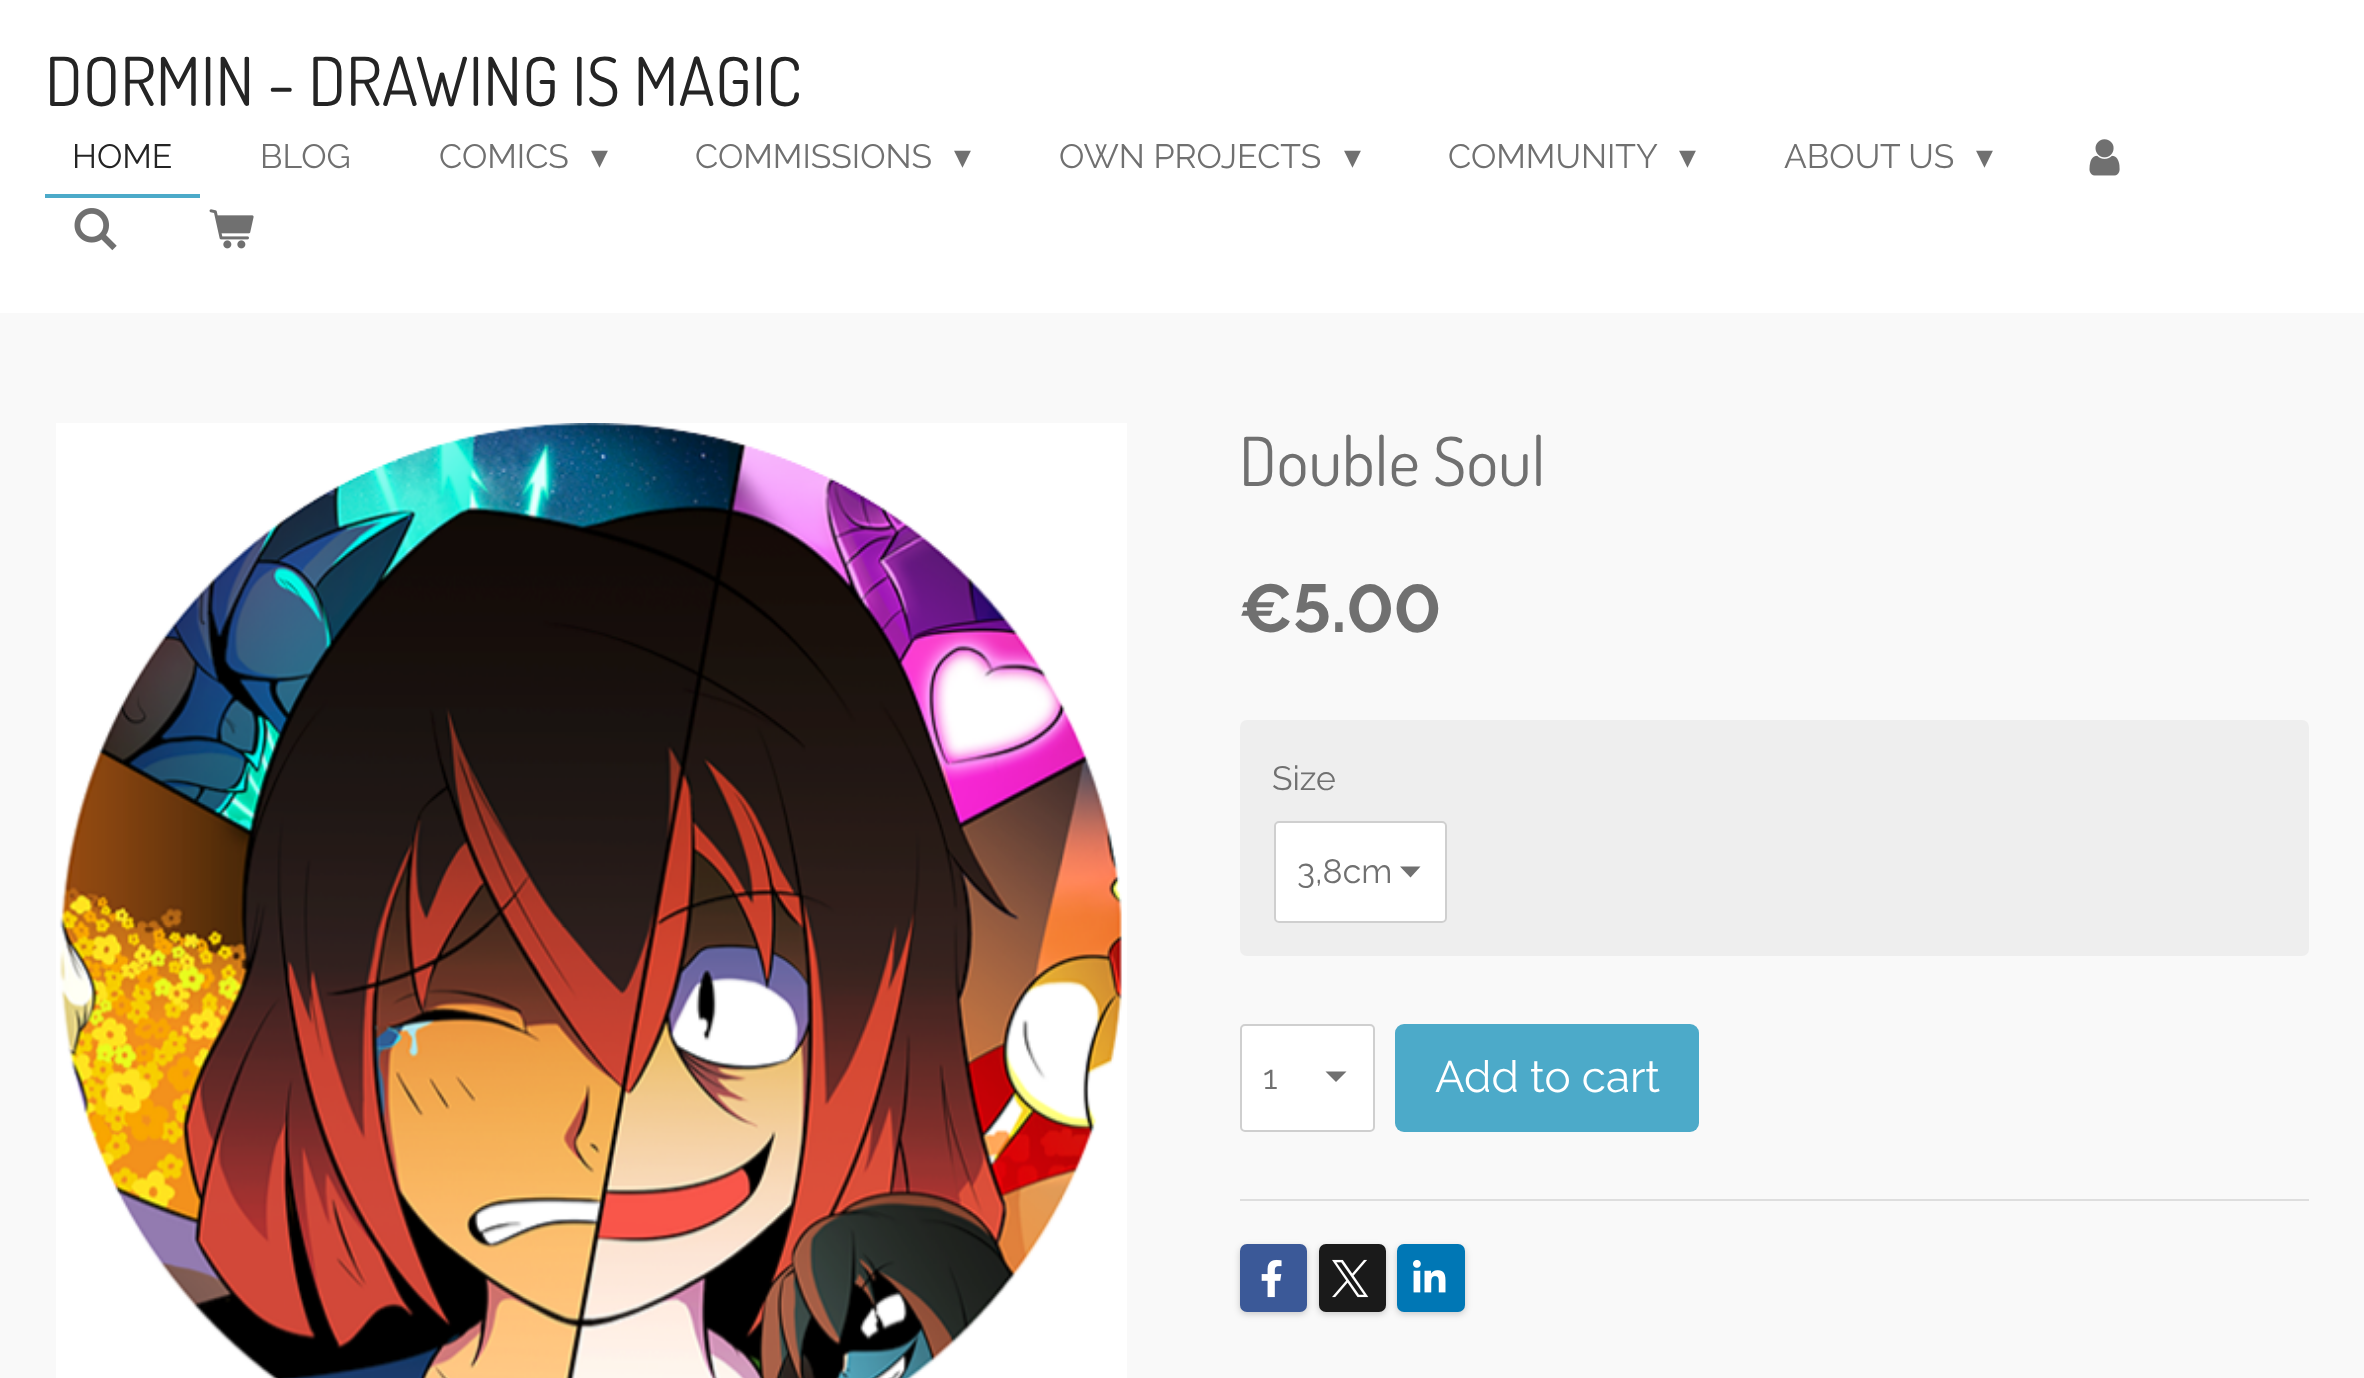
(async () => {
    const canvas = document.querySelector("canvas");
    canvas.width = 2364;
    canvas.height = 1378;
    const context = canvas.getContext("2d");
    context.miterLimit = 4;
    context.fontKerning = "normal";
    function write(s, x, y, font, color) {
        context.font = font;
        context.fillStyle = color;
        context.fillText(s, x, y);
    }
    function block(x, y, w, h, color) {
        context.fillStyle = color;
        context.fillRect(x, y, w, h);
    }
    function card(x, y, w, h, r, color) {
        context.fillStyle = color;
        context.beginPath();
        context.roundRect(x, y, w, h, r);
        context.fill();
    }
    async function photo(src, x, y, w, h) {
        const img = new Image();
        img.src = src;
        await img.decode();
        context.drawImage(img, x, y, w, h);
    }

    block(0, 0, 2364, 1378, "rgb(255, 255, 255)");
    write("DORMIN - DRAWING IS MAGIC", 45, 106, "67.5px Dosis", "rgb(36, 36, 36)");
    block(45, 194, 155, 4, "rgb(76, 170, 201)");
    write("HOME", 72, 168, "33.75px Raleway", "rgb(36, 36, 36)");
    write("BLOG", 260, 168, "33.75px Raleway", "rgb(112, 112, 112)");
    write("COMICS", 439, 168, "33.75px Raleway", "rgb(112, 112, 112)");
    write("▾", 591, 168, "33.75px DejaVu Sans", "rgb(112, 112, 112)");
    write("COMMISSIONS", 695, 168, "33.75px Raleway", "rgb(112, 112, 112)");
    write("▾", 954, 168, "33.75px DejaVu Sans", "rgb(112, 112, 112)");
    write("OWN PROJECTS", 1059, 168, "33.75px Raleway", "rgb(112, 112, 112)");
    write("▾", 1344, 168, "33.75px DejaVu Sans", "rgb(112, 112, 112)");
    write("COMMUNITY", 1448, 168, "33.75px Raleway", "rgb(112, 112, 112)");
    write("▾", 1679, 168, "33.75px DejaVu Sans", "rgb(112, 112, 112)");
    write("ABOUT US", 1784, 168, "33.75px Raleway", "rgb(112, 112, 112)");
    write("▾", 1976, 168, "33.75px DejaVu Sans", "rgb(112, 112, 112)");
    await photo("media/1.png", 2089, 139, 31, 37);
    await photo("media/2.png", 74, 208, 43, 43);
    await photo("media/3.png", 209, 209, 45, 40);
    block(0, 313, 2364, 1065, "rgb(249, 249, 249)");
    await photo("media/4.png", 56, 423, 1071, 955);
    write("Double Soul", 1239, 486, "67.5px Dosis", "rgb(112, 112, 112)");
    write("€5.00", 1239, 632, "bold 67.5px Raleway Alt", "rgb(112, 112, 112)");
    card(1240, 720, 1069, 236, 7, "rgb(238, 238, 238)");
    write("Size", 1272, 790, "33.75px Raleway", "rgb(112, 112, 112)");
    card(1274, 821, 173, 102, 5, "rgb(255, 255, 255)");
    context.fillStyle = "rgb(112, 112, 112)";
    context.beginPath();
    context.moveTo(1410.5, 877.5);
    context.lineTo(1400, 866.5);
    context.lineTo(1420.5, 866.5);
    context.closePath();
    context.fill();
    context.beginPath();
    context.roundRect(1275, 822, 171, 100, 4);
    context.strokeStyle = "rgba(160, 160, 160, 0.5)";
    context.lineWidth = 2;
    context.stroke();
    write("3,8cm", 1297, 883, "33.75px Raleway", "rgb(112, 112, 112)");
    card(1240, 1024, 135, 108, 5, "rgb(255, 255, 255)");
    context.fillStyle = "rgb(112, 112, 112)";
    context.beginPath();
    context.moveTo(1336, 1082);
    context.lineTo(1325.5, 1071.5);
    context.lineTo(1346.5, 1071.5);
    context.closePath();
    context.fill();
    context.beginPath();
    context.roundRect(1241, 1025, 133, 106, 4);
    context.stroke();
    write("1", 1263, 1089, "33.75px Raleway", "rgb(112, 112, 112)");
    card(1395, 1024, 304, 108, 9, "rgb(76, 170, 201)");
    write("Add to cart", 1435, 1092, "44px Raleway", "rgb(255, 255, 255)");
    block(1240, 1199, 1069, 2, "rgb(222, 222, 222)");
    context.fillStyle = "rgba(0, 0, 0, 0.2)";
    context.filter = "blur(3.5px)";
    context.beginPath();
    context.roundRect(1240, 1247, 67, 67, 7);
    context.fill();
    context.filter = "none";
    card(1240, 1244, 67, 68, 7, "rgb(59, 89, 152)");
    await photo("media/5.png", 1261, 1259, 21, 39);
    context.fillStyle = "rgba(0, 0, 0, 0.2)";
    context.filter = "blur(3.5px)";
    context.beginPath();
    context.roundRect(1319, 1247, 67, 67, 7);
    context.fill();
    context.filter = "none";
    card(1319, 1244, 67, 68, 7, "rgb(26, 26, 26)");
    await photo("media/6.png", 1332, 1259, 37, 39);
    context.fillStyle = "rgba(0, 0, 0, 0.2)";
    context.filter = "blur(3.5px)";
    context.beginPath();
    context.roundRect(1397, 1247, 68, 67, 7);
    context.fill();
    context.filter = "none";
    card(1397, 1244, 68, 68, 7, "rgb(0, 119, 181)");
    await photo("media/7.png", 1413, 1260, 33, 33);
})();
